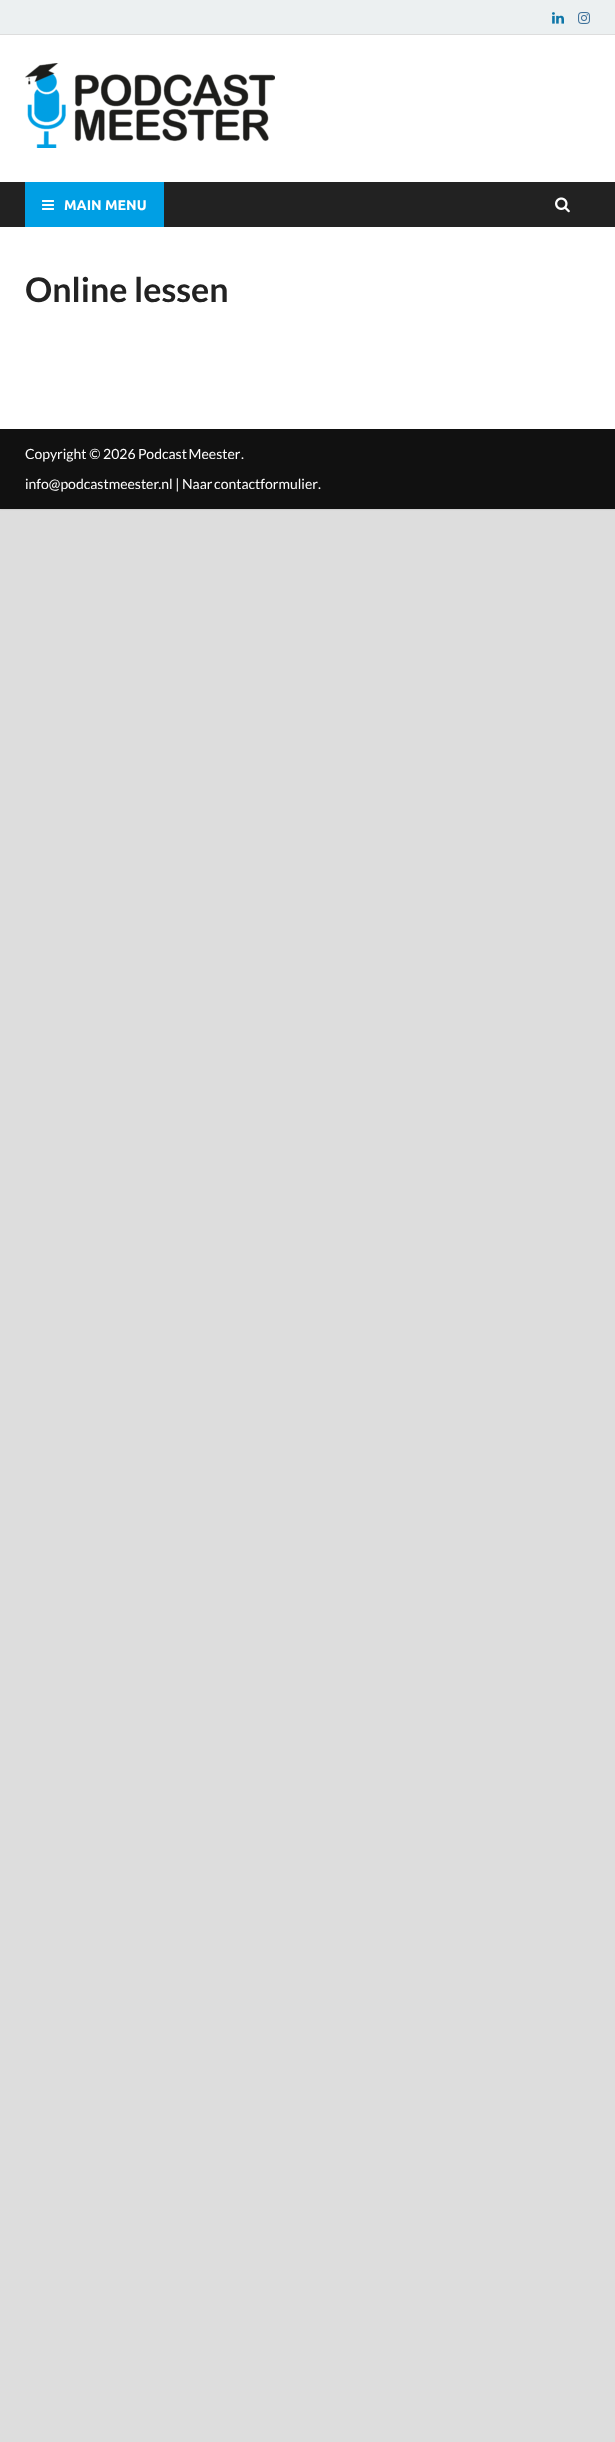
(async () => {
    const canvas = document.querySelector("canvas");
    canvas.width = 615;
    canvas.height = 2442;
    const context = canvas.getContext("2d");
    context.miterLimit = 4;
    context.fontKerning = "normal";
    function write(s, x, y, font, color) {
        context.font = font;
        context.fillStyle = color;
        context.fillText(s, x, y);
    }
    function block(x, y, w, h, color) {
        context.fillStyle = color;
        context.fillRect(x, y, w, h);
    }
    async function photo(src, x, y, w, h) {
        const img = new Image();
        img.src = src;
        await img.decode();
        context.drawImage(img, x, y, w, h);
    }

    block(0, 0, 615, 2442, "rgb(221, 221, 221)");
    context.fillStyle = "rgb(187, 187, 187)";
    context.filter = "blur(1px)";
    context.beginPath();
    context.rect(0, 0, 615, 509);
    context.fill();
    context.filter = "none";
    block(0, 35, 615, 394, "rgb(255, 255, 255)");
    block(0, 0, 615, 34, "rgb(236, 240, 241)");
    block(0, 34, 615, 1, "rgb(221, 221, 221)");
    await photo("media/1.png", 552, 12, 12, 12);
    await photo("media/2.png", 578, 12, 12, 12);
    await photo("media/3.png", 25, 63, 250, 85);
    block(0, 182, 615, 45, "rgb(34, 34, 34)");
    block(25, 182, 139, 45, "rgb(0, 159, 228)");
    await photo("media/4.png", 42, 200, 12, 10);
    write("MAIN MENU", 64, 210, "bold 14px Ubuntu", "rgb(255, 255, 255)");
    await photo("media/5.png", 555, 197, 15, 16);
    write("Online lessen", 25, 302, "bold 34px Lato", "rgb(34, 34, 34)");
    block(0, 429, 615, 80, "rgb(17, 17, 17)");
    write("Copyright © 2026", 25, 459, "14px Lato", "rgb(255, 255, 255)");
    context.wordSpacing = "-1px";
    write("Podcast Meester", 138, 459, "14px Lato", "rgb(255, 255, 255)");
    context.wordSpacing = "0px";
    write(".", 241, 459, "14px Lato", "rgb(255, 255, 255)");
    write("info@podcastmeester.nl |", 25, 489, "14px Lato", "rgb(255, 255, 255)");
    context.wordSpacing = "-1px";
    write("Naar contactformulier", 182, 489, "14px Lato", "rgb(255, 255, 255)");
    context.wordSpacing = "0px";
    write(".", 318, 489, "14px Lato", "rgb(255, 255, 255)");
})();
